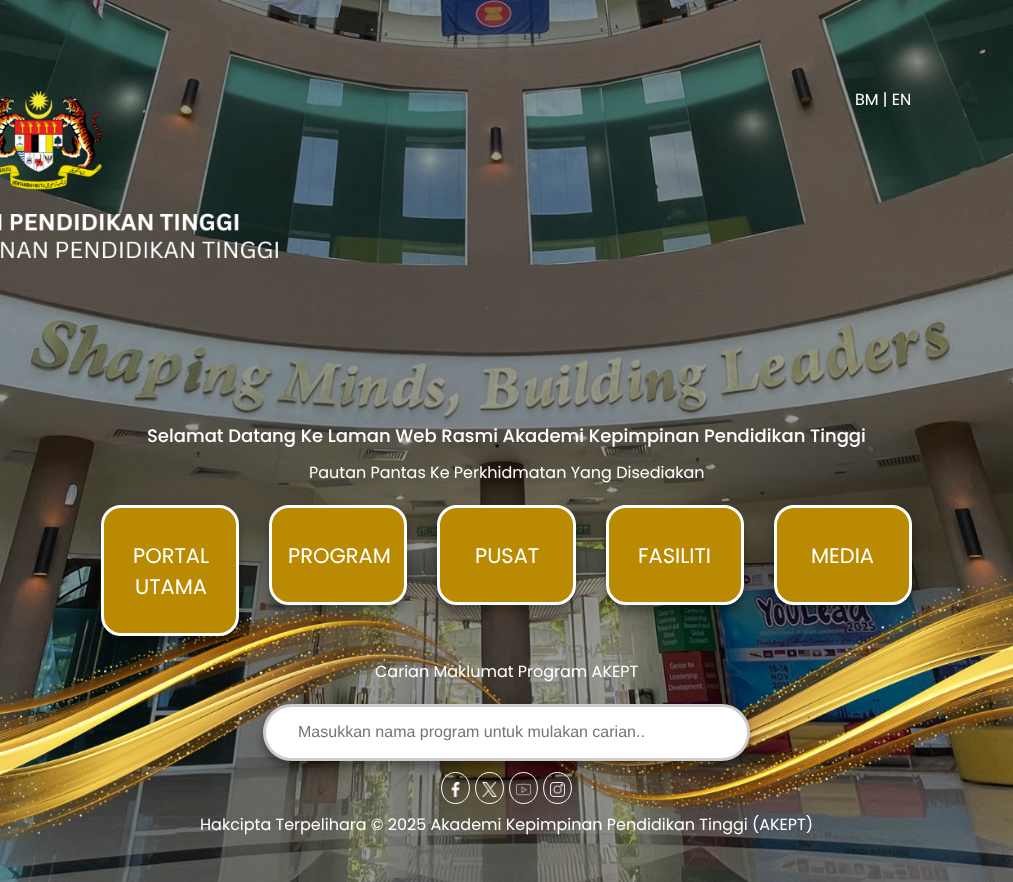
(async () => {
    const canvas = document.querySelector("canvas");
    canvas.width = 1013;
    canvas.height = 882;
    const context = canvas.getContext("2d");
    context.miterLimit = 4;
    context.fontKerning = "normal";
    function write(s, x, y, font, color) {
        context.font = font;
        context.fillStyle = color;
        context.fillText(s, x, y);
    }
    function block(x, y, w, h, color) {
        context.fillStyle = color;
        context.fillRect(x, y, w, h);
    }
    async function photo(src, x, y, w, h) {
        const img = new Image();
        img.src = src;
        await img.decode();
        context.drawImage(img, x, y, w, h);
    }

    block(0, 0, 1013, 882, "rgb(255, 255, 255)");
    await photo("media/1.png", 0, 0, 1013, 882);
    write("BM | EN", 855, 105, "16px Poppins", "rgb(255, 255, 255)");
    write("Selamat Datang Ke Laman Web Rasmi Akademi Kepimpinan Pendidikan Tinggi", 147, 442, "500 18px Poppins", "rgb(255, 255, 255)");
    write("Pautan Pantas Ke Perkhidmatan Yang Disediakan", 309, 478, "16px Poppins", "rgb(255, 255, 255)");
    context.fillStyle = "rgba(0, 0, 0, 0.23)";
    context.filter = "blur(3px)";
    context.beginPath();
    context.roundRect(101, 511, 138, 131, 20);
    context.fill();
    context.filter = "none";
    context.fillStyle = "rgba(0, 0, 0, 0.19)";
    context.filter = "blur(10px)";
    context.beginPath();
    context.roundRect(101, 515, 138, 131, 20);
    context.fill();
    context.filter = "none";
    context.fillStyle = "rgb(186, 139, 2)";
    context.beginPath();
    context.roundRect(102.5, 506.5, 135, 128, 18.5);
    context.fill();
    context.strokeStyle = "rgb(255, 255, 255)";
    context.lineWidth = 3;
    context.stroke();
    write("PORTAL", 133, 563, "21px Poppins", "rgb(255, 255, 255)");
    write("UTAMA", 135, 594, "21px Poppins", "rgb(255, 255, 255)");
    context.fillStyle = "rgba(0, 0, 0, 0.23)";
    context.filter = "blur(3px)";
    context.beginPath();
    context.roundRect(269, 511, 138, 100, 20);
    context.fill();
    context.filter = "none";
    context.fillStyle = "rgba(0, 0, 0, 0.19)";
    context.filter = "blur(10px)";
    context.beginPath();
    context.roundRect(269, 515, 138, 100, 20);
    context.fill();
    context.filter = "none";
    context.fillStyle = "rgb(186, 139, 2)";
    context.beginPath();
    context.roundRect(270.5, 506.5, 135, 97, 18.5);
    context.fill();
    context.stroke();
    write("PROGRAM", 288, 563, "21px Poppins", "rgb(255, 255, 255)");
    context.fillStyle = "rgba(0, 0, 0, 0.23)";
    context.filter = "blur(3px)";
    context.beginPath();
    context.roundRect(437, 511, 139, 100, 20);
    context.fill();
    context.filter = "none";
    context.fillStyle = "rgba(0, 0, 0, 0.19)";
    context.filter = "blur(10px)";
    context.beginPath();
    context.roundRect(437, 515, 139, 100, 20);
    context.fill();
    context.filter = "none";
    context.fillStyle = "rgb(186, 139, 2)";
    context.beginPath();
    context.roundRect(438.5, 506.5, 136, 97, 18.5);
    context.fill();
    context.stroke();
    write("PUSAT", 475, 563, "21px Poppins", "rgb(255, 255, 255)");
    context.fillStyle = "rgba(0, 0, 0, 0.23)";
    context.filter = "blur(3px)";
    context.beginPath();
    context.roundRect(606, 511, 138, 100, 20);
    context.fill();
    context.filter = "none";
    context.fillStyle = "rgba(0, 0, 0, 0.19)";
    context.filter = "blur(10px)";
    context.beginPath();
    context.roundRect(606, 515, 138, 100, 20);
    context.fill();
    context.filter = "none";
    context.fillStyle = "rgb(186, 139, 2)";
    context.beginPath();
    context.roundRect(607.5, 506.5, 135, 97, 18.5);
    context.fill();
    context.stroke();
    write("FASILITI", 638, 563, "21px Poppins", "rgb(255, 255, 255)");
    context.fillStyle = "rgba(0, 0, 0, 0.23)";
    context.filter = "blur(3px)";
    context.beginPath();
    context.roundRect(774, 511, 138, 100, 20);
    context.fill();
    context.filter = "none";
    context.fillStyle = "rgba(0, 0, 0, 0.19)";
    context.filter = "blur(10px)";
    context.beginPath();
    context.roundRect(774, 515, 138, 100, 20);
    context.fill();
    context.filter = "none";
    context.fillStyle = "rgb(186, 139, 2)";
    context.beginPath();
    context.roundRect(775.5, 506.5, 135, 97, 18.5);
    context.fill();
    context.stroke();
    write("MEDIA", 811, 563, "21px Poppins", "rgb(255, 255, 255)");
    write("Carian Maklumat Program AKEPT", 375, 677, "16px Poppins", "rgb(255, 255, 255)");
    context.fillStyle = "rgba(0, 0, 0, 0.23)";
    context.filter = "blur(3px)";
    context.beginPath();
    context.roundRect(263, 710, 487, 57, 28.5);
    context.fill();
    context.filter = "none";
    context.fillStyle = "rgba(0, 0, 0, 0.19)";
    context.filter = "blur(10px)";
    context.beginPath();
    context.roundRect(263, 714, 487, 57, 28.5);
    context.fill();
    context.filter = "none";
    context.fillStyle = "rgb(255, 255, 255)";
    context.beginPath();
    context.roundRect(264.5, 705.5, 484, 54, 27);
    context.fill();
    context.strokeStyle = "rgb(204, 204, 204)";
    context.stroke();
    write("Masukkan nama program untuk mulakan carian..", 298, 737, "16px Liberation Sans", "rgb(117, 117, 117)");
    context.beginPath();
    context.moveTo(455.5, 772.5);
    context.bezierCurveTo(474, 772.5, 474, 803.5, 455.5, 803.5);
    context.bezierCurveTo(437, 803.5, 437, 772.5, 455.5, 772.5);
    context.closePath();
    context.strokeStyle = "rgb(255, 255, 255)";
    context.lineWidth = 1;
    context.stroke();
    context.beginPath();
    context.moveTo(489.5, 772.5);
    context.bezierCurveTo(508, 772.5, 508, 803.5, 489.5, 803.5);
    context.bezierCurveTo(471, 803.5, 471, 772.5, 489.5, 772.5);
    context.closePath();
    context.stroke();
    context.beginPath();
    context.moveTo(523.5, 772.5);
    context.bezierCurveTo(542, 772.5, 542, 803.5, 523.5, 803.5);
    context.bezierCurveTo(505, 803.5, 505, 772.5, 523.5, 772.5);
    context.closePath();
    context.stroke();
    context.beginPath();
    context.moveTo(557.5, 772.5);
    context.bezierCurveTo(576, 772.5, 576, 803.5, 557.5, 803.5);
    context.bezierCurveTo(539, 803.5, 539, 772.5, 557.5, 772.5);
    context.closePath();
    context.stroke();
    await photo("media/2.png", 451, 782, 10, 15);
    await photo("media/3.png", 482, 782, 15, 15);
    await photo("media/4.png", 516, 783, 15, 13);
    await photo("media/5.png", 550, 782, 15, 15);
    write("Hakcipta Terpelihara © 2025 Akademi Kepimpinan Pendidikan Tinggi (AKEPT)", 200, 830, "16px Poppins", "rgb(255, 255, 255)");
})();
